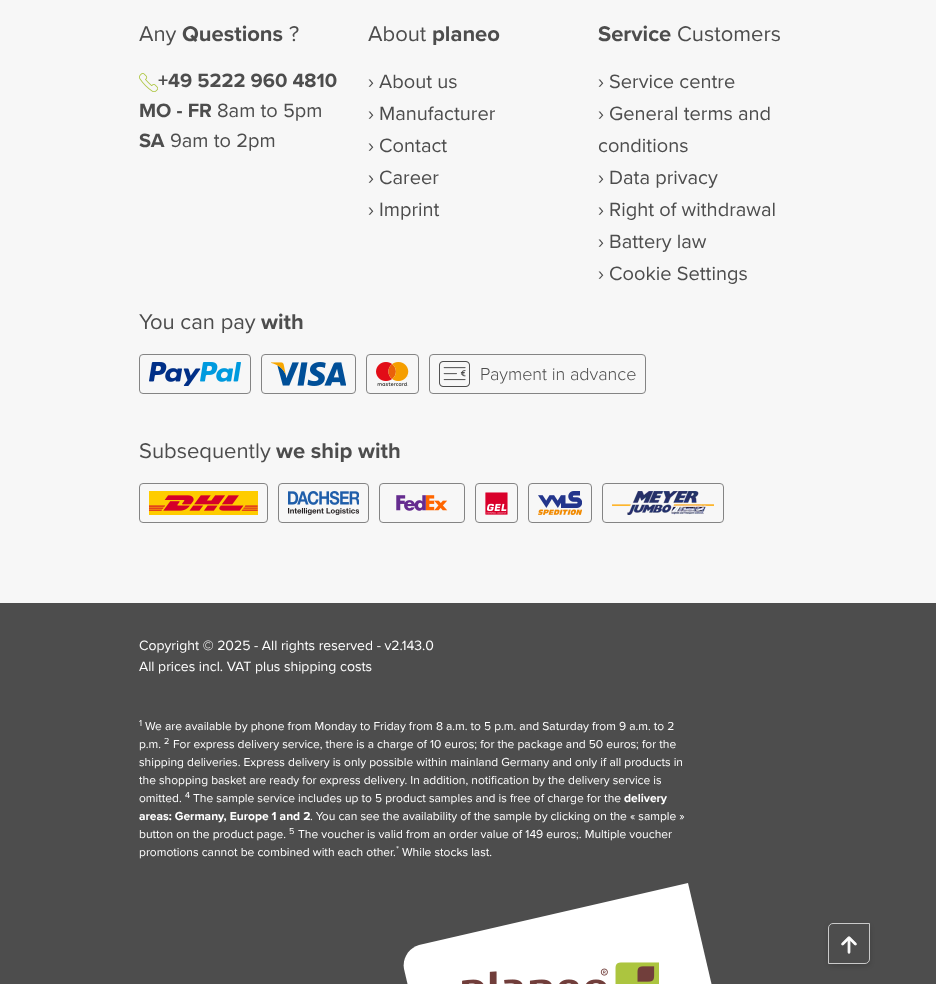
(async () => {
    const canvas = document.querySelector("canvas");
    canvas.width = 936;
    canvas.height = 984;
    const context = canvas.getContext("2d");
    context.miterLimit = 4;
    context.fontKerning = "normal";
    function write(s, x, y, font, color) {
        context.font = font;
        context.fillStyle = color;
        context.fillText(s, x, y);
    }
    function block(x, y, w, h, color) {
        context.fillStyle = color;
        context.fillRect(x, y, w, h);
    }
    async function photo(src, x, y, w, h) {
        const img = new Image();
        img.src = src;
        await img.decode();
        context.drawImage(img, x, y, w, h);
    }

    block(0, 0, 936, 984, "rgb(77, 77, 77)");
    block(0, 0, 936, 603, "rgb(247, 247, 247)");
    write("Any", 139, 41, "22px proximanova", "rgb(77, 77, 77)");
    write("Questions", 182, 41, "bold 22px proximanova", "rgb(77, 77, 77)");
    write("?", 289, 41, "22px proximanova", "rgb(77, 77, 77)");
    await photo("media/1.png", 139, 73, 19, 19);
    write("+49 5222 960 4810", 158, 87, "bold 20px proximanova", "rgb(77, 77, 77)");
    write("MO - FR", 139, 117, "bold 20px proximanova", "rgb(77, 77, 77)");
    write("8am to 5pm", 217, 117, "20px proximanova", "rgb(77, 77, 77)");
    write("SA", 139, 147, "bold 20px proximanova", "rgb(77, 77, 77)");
    write("9am to 2pm", 170, 147, "20px proximanova", "rgb(77, 77, 77)");
    write("About", 368, 41, "22px proximanova", "rgb(77, 77, 77)");
    write("planeo", 432, 41, "bold 22px proximanova", "rgb(77, 77, 77)");
    write("› About us", 368, 88, "20px proximanova", "rgb(77, 77, 77)");
    write("› Manufacturer", 368, 120, "20px proximanova", "rgb(77, 77, 77)");
    write("› Contact", 368, 152, "20px proximanova", "rgb(77, 77, 77)");
    write("› Career", 368, 184, "20px proximanova", "rgb(77, 77, 77)");
    write("› Imprint", 368, 216, "20px proximanova", "rgb(77, 77, 77)");
    write("Service", 598, 41, "bold 22px proximanova", "rgb(77, 77, 77)");
    write("Customers", 677, 41, "22px proximanova", "rgb(77, 77, 77)");
    write("› Service centre", 598, 88, "20px proximanova", "rgb(77, 77, 77)");
    write("› General terms and", 598, 120, "20px proximanova", "rgb(77, 77, 77)");
    write("conditions", 598, 152, "20px proximanova", "rgb(77, 77, 77)");
    write("› Data privacy", 598, 184, "20px proximanova", "rgb(77, 77, 77)");
    write("› Right of withdrawal", 598, 216, "20px proximanova", "rgb(77, 77, 77)");
    write("› Battery law", 598, 248, "20px proximanova", "rgb(77, 77, 77)");
    write("› Cookie Settings", 598, 280, "20px proximanova", "rgb(77, 77, 77)");
    write("You can pay", 139, 329, "22px proximanova", "rgb(77, 77, 77)");
    write("with", 261, 329, "bold 22px proximanova", "rgb(77, 77, 77)");
    context.beginPath();
    context.roundRect(139.5, 354.5, 111, 39, 3.5);
    context.strokeStyle = "rgb(132, 132, 132)";
    context.stroke();
    await photo("media/2.png", 149, 362, 92, 24);
    context.beginPath();
    context.roundRect(261.5, 354.5, 94, 39, 3.5);
    context.stroke();
    await photo("media/3.png", 271, 362, 75, 24);
    context.beginPath();
    context.roundRect(366.5, 354.5, 52, 39, 3.5);
    context.stroke();
    await photo("media/4.png", 376, 362, 33, 24);
    context.beginPath();
    context.roundRect(429.5, 354.5, 216, 39, 3.5);
    context.stroke();
    await photo("media/5.png", 439, 361, 31, 26);
    write("Payment in advance", 480, 380, "300 18px Proxima Nova", "rgb(77, 77, 77)");
    write("Subsequently", 139, 458, "22px proximanova", "rgb(77, 77, 77)");
    write("we ship with", 276, 458, "bold 22px proximanova", "rgb(77, 77, 77)");
    context.beginPath();
    context.roundRect(139.5, 483.5, 128, 39, 3.5);
    context.stroke();
    await photo("media/6.png", 149, 491, 109, 24);
    context.beginPath();
    context.roundRect(278.5, 483.5, 90, 39, 3.5);
    context.stroke();
    await photo("media/7.png", 288, 491, 71, 24);
    context.beginPath();
    context.roundRect(379.5, 483.5, 85, 39, 3.5);
    context.stroke();
    await photo("media/8.png", 396, 495, 52, 16);
    context.beginPath();
    context.roundRect(475.5, 483.5, 42, 39, 3.5);
    context.stroke();
    await photo("media/9.png", 485, 492, 23, 23);
    context.beginPath();
    context.roundRect(528.5, 483.5, 63, 39, 3.5);
    context.stroke();
    await photo("media/10.png", 538, 491, 44, 24);
    context.beginPath();
    context.roundRect(602.5, 483.5, 121, 39, 3.5);
    context.stroke();
    await photo("media/11.png", 612, 491, 102, 24);
    write("Copyright © 2025 - All rights reserved - v2.143.0", 139, 650, "14px proximanova", "rgb(255, 255, 255)");
    write("All prices incl. VAT plus shipping costs", 139, 671, "14px proximanova", "rgb(255, 255, 255)");
    write("1", 139, 726, "9px proximanova", "rgb(255, 255, 255)");
    write("We are available by phone from Monday to Friday from 8 a.m. to 5 p.m. and Saturday from 9 a.m. to 2", 145, 730, "12px proximanova", "rgb(255, 255, 255)");
    write("p.m.", 139, 748, "12px proximanova", "rgb(255, 255, 255)");
    write("2", 164, 744, "9px proximanova", "rgb(255, 255, 255)");
    write("For express delivery service, there is a charge of 10 euros; for the package and 50 euros; for the", 173, 748, "12px proximanova", "rgb(255, 255, 255)");
    write("shipping deliveries. Express delivery is only possible within mainland Germany and only if all products in", 139, 766, "12px proximanova", "rgb(255, 255, 255)");
    write("the shopping basket are ready for express delivery. In addition, notification by the delivery service is", 139, 784, "12px proximanova", "rgb(255, 255, 255)");
    write("omitted.", 139, 802, "12px proximanova", "rgb(255, 255, 255)");
    write("4", 185, 798, "9px proximanova", "rgb(255, 255, 255)");
    write("The sample service includes up to 5 product samples and is free of charge for the", 193, 802, "12px proximanova", "rgb(255, 255, 255)");
    write("delivery", 624, 802, "bold 12px proximanova", "rgb(255, 255, 255)");
    write("areas: Germany, Europe 1 and 2", 139, 820, "bold 12px proximanova", "rgb(255, 255, 255)");
    write(". You can see the availability of the sample by clicking on the « sample »", 310, 820, "12px proximanova", "rgb(255, 255, 255)");
    write("button on the product page.", 139, 838, "12px proximanova", "rgb(255, 255, 255)");
    write("5", 289, 834, "9px proximanova", "rgb(255, 255, 255)");
    write("The voucher is valid from an order value of 149 euros;. Multiple voucher", 298, 838, "12px proximanova", "rgb(255, 255, 255)");
    write("*", 396, 852, "9px proximanova", "rgb(255, 255, 255)");
    write("promotions cannot be combined with each other.", 139, 856, "12px proximanova", "rgb(255, 255, 255)");
    write("While stocks last.", 402, 856, "12px proximanova", "rgb(255, 255, 255)");
    context.beginPath();
    context.moveTo(419, 945);
    context.lineTo(688, 883);
    context.lineTo(729, 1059);
    context.lineTo(441, 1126);
    context.lineTo(404, 969);
    context.bezierCurveTo(402, 958, 409, 948, 419, 945);
    context.closePath();
    context.fill();
    await photo("media/12.png", 462, 962, 197, 22);
    context.fillStyle = "rgba(0, 0, 0, 0.16)";
    context.filter = "blur(2.5px)";
    context.beginPath();
    context.roundRect(828, 925, 42, 41, 5);
    context.fill();
    context.filter = "none";
    context.fillStyle = "rgb(77, 77, 77)";
    context.beginPath();
    context.roundRect(828.5, 923.5, 41, 40, [4.5, 0, 4.5, 0]);
    context.fill();
    context.strokeStyle = "rgb(202, 202, 202)";
    context.stroke();
    await photo("media/13.png", 841, 936, 16, 18);
})();
